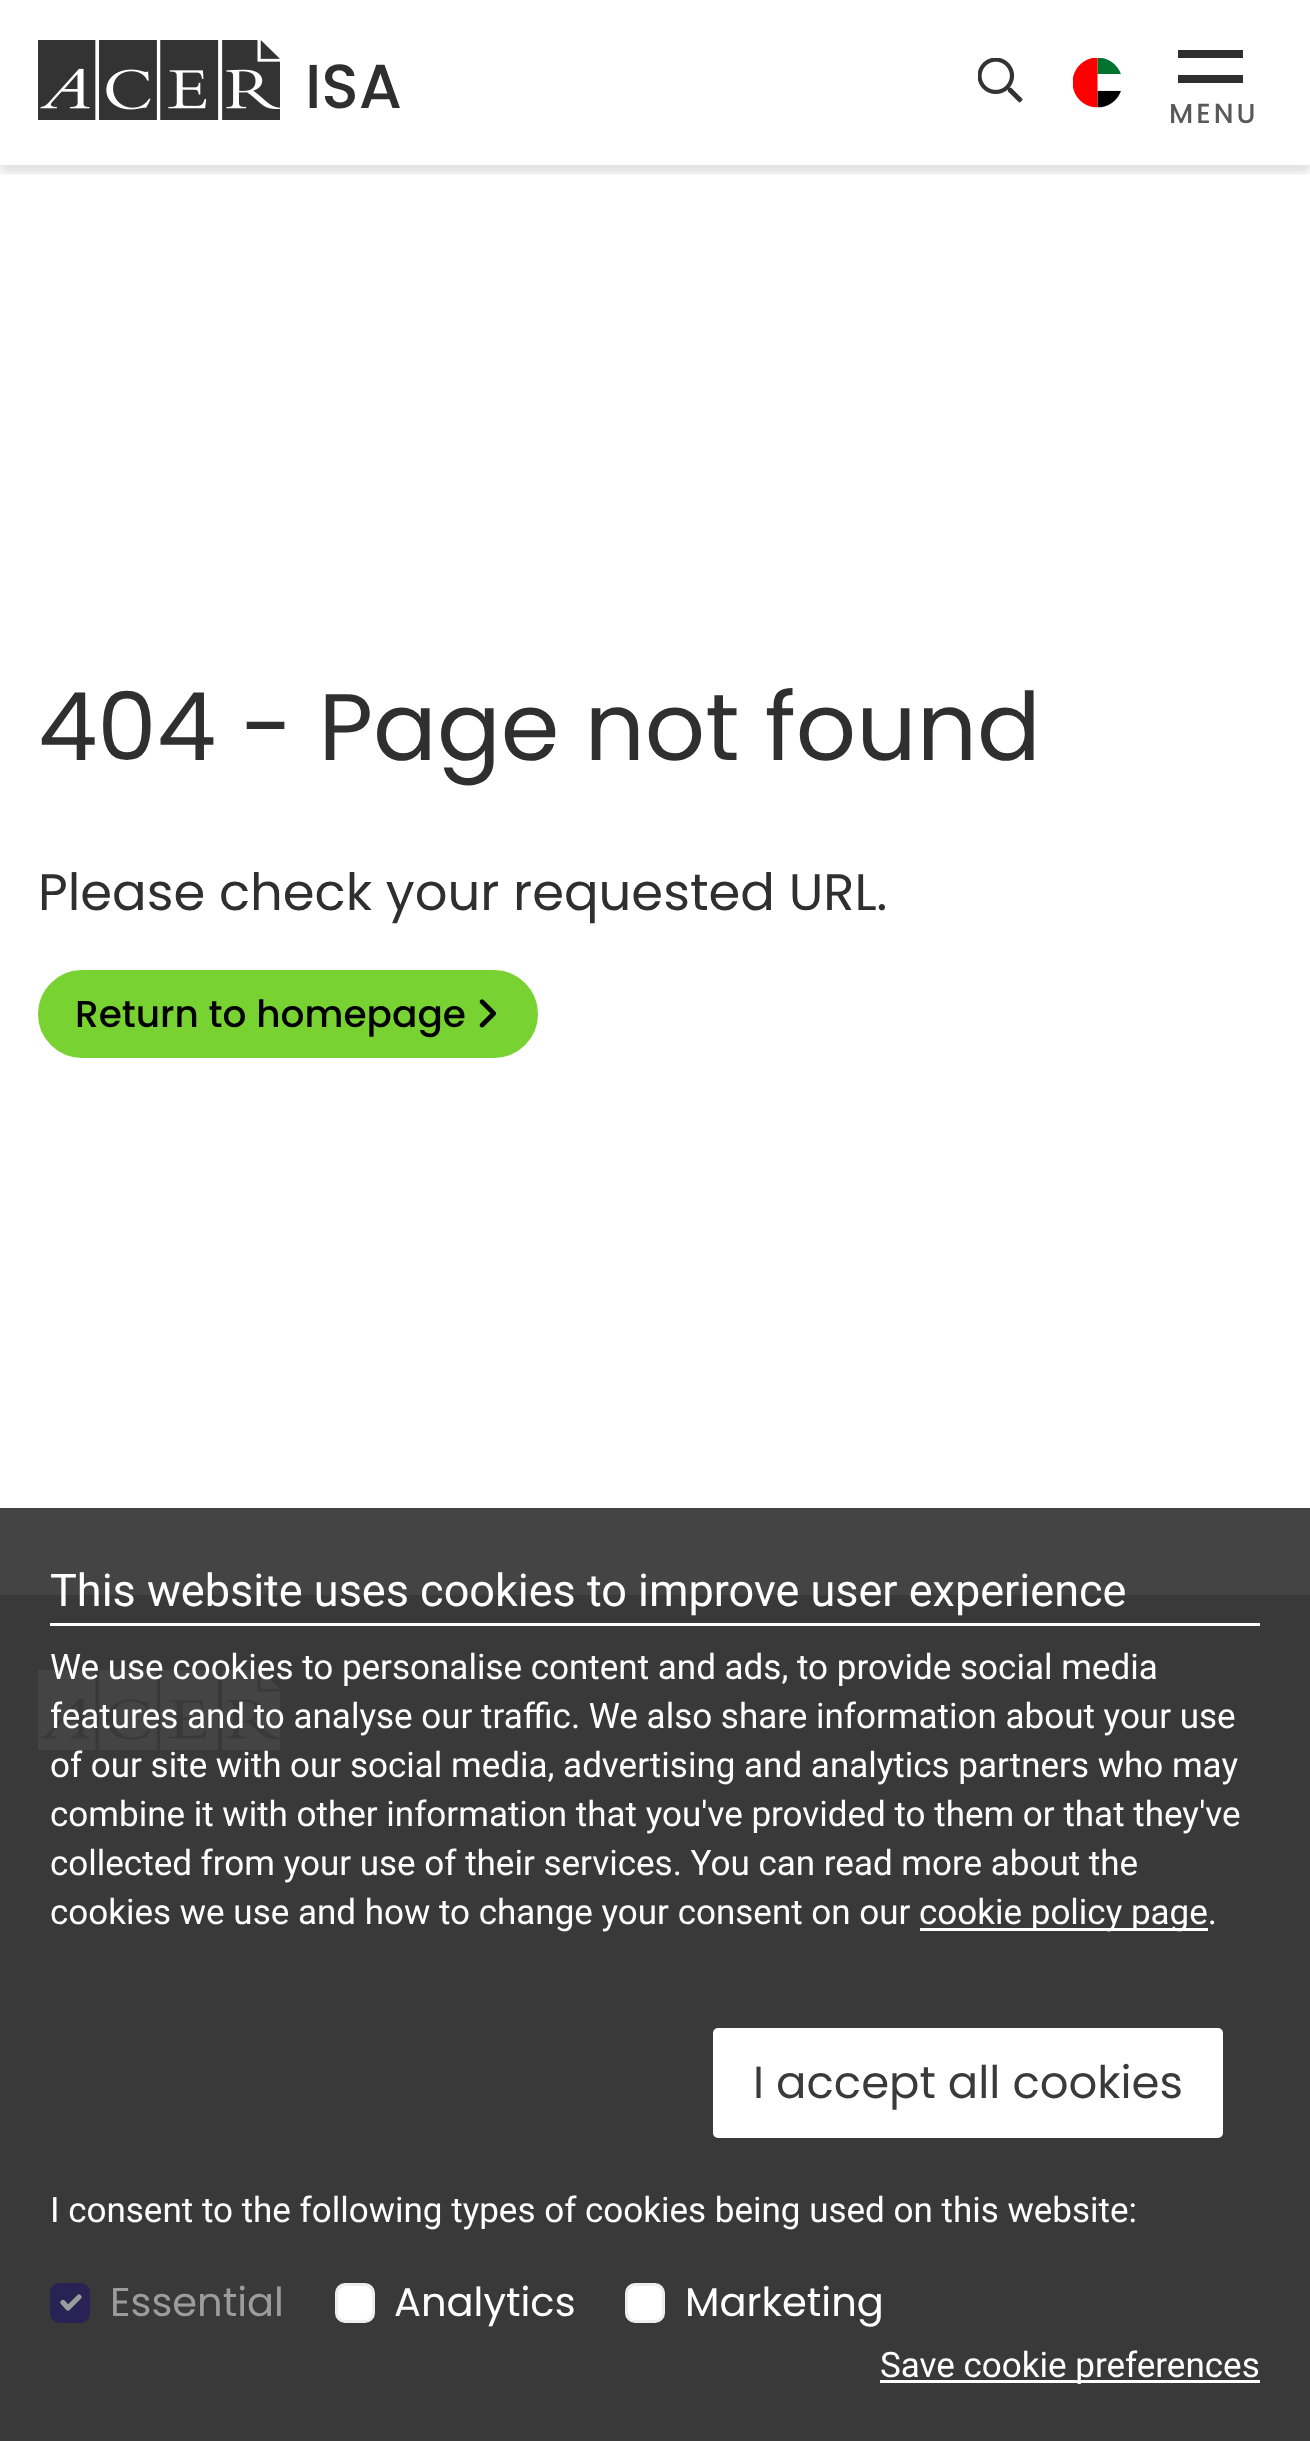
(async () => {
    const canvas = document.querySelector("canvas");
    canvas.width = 1310;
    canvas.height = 2441;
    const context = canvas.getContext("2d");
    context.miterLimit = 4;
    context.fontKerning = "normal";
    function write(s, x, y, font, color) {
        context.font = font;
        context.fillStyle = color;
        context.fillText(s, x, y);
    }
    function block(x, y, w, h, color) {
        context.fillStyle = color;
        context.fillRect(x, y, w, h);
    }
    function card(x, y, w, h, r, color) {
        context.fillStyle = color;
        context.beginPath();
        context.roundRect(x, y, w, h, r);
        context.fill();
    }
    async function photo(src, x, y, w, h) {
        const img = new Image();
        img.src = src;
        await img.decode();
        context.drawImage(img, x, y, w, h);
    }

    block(0, 0, 1310, 2441, "rgb(255, 255, 255)");
    block(0, 1508, 1310, 87, "rgb(68, 68, 68)");
    context.save();
    context.beginPath();
    context.rect(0, 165, 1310, 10);
    context.clip();
    context.fillStyle = "rgba(0, 0, 0, 0.06)";
    context.filter = "blur(4px)";
    context.beginPath();
    context.rect(0, 8, 1310, 165);
    context.fill();
    context.filter = "none";
    context.filter = "blur(4px)";
    context.beginPath();
    context.rect(0, 93, 1310, 80);
    context.fill();
    context.filter = "none";
    context.restore();
    await photo("media/1.png", 1073, 58, 48, 50);
    await photo("media/2.png", 38, 40, 242, 80);
    write("ISA", 305, 108, "500 62px Poppins", "rgb(47, 47, 47)");
    await photo("media/3.png", 978, 58, 45, 45);
    block(1178, 50, 65, 8, "rgb(47, 47, 47)");
    block(1178, 75, 65, 8, "rgb(47, 47, 47)");
    context.letterSpacing = "3px";
    write("MENU", 1169, 123, "500 27.5px Poppins", "rgb(89, 89, 89)");
    context.letterSpacing = "0px";
    write("404 - Page not found", 38, 760, "94.4px Poppins", "rgb(47, 47, 47)");
    write("Please check your requested URL.", 38, 910, "51.25px Poppins", "rgb(47, 47, 47)");
    context.fillStyle = "rgb(120, 210, 49)";
    context.beginPath();
    context.roundRect(39.5, 971.5, 497, 85, 42.5);
    context.fill();
    context.strokeStyle = "rgb(120, 210, 49)";
    context.lineWidth = 3;
    context.stroke();
    write("Return to homepage", 75, 1027, "500 37.5px Poppins", "rgb(0, 0, 0)");
    await photo("media/4.png", 479, 999, 18, 29);
    block(0, 1595, 1310, 846, "rgb(57, 57, 57)");
    block(50, 1623, 1210, 3, "rgb(255, 255, 255)");
    write("This website uses cookies to improve user experience", 50, 1606, "45px Roboto", "rgb(255, 255, 255)");
    await photo("media/5.png", 38, 1670, 242, 80);
    write("We use cookies to personalise content and ads, to provide social media", 50, 1679, "35px Roboto", "rgb(255, 255, 255)");
    write("features and to analyse our traffic. We also share information about your use", 50, 1728, "35px Roboto", "rgb(255, 255, 255)");
    write("of our site with our social media, advertising and analytics partners who may", 50, 1777, "35px Roboto", "rgb(255, 255, 255)");
    write("combine it with other information that you've provided to them or that they've", 50, 1826, "35px Roboto", "rgb(255, 255, 255)");
    write("collected from your use of their services. You can read more about the", 50, 1875, "35px Roboto", "rgb(255, 255, 255)");
    write("cookies we use and how to change your consent on our", 50, 1924, "35px Roboto", "rgb(255, 255, 255)");
    block(920, 1928, 288, 3, "rgb(255, 255, 255)");
    write("cookie policy page.", 919, 1924, "35px Roboto", "rgb(255, 255, 255)");
    card(713, 2028, 510, 110, 5, "rgb(255, 255, 255)");
    write("I accept all cookies", 753, 2098, "45px Poppins", "rgb(58, 58, 58)");
    write("I consent to the following types of cookies being used on this website:", 50, 2222, "35px Roboto", "rgb(255, 255, 255)");
    card(50, 2283, 40, 40, 10, "rgb(41, 34, 85)");
    context.beginPath();
    context.moveTo(63, 2302.5);
    context.lineTo(68, 2308);
    context.lineTo(79, 2297);
    context.strokeStyle = "rgb(156, 156, 156)";
    context.lineWidth = 5.2;
    context.lineCap = "round";
    context.lineJoin = "round";
    context.stroke();
    context.beginPath();
    context.roundRect(51.5, 2284.5, 37, 37, 8.5);
    context.strokeStyle = "rgb(41, 34, 85)";
    context.lineWidth = 3;
    context.lineJoin = "miter";
    context.stroke();
    write("Essential", 110, 2316, "40px Poppins", "rgb(156, 156, 156)");
    context.fillStyle = "rgb(255, 255, 255)";
    context.beginPath();
    context.roundRect(336.5, 2284.5, 37, 37, 8.5);
    context.fill();
    context.strokeStyle = "rgb(237, 237, 242)";
    context.stroke();
    write("Analytics", 394, 2316, "40px Poppins", "rgb(255, 255, 255)");
    context.beginPath();
    context.roundRect(626.5, 2284.5, 37, 37, 8.5);
    context.fill();
    context.stroke();
    write("Marketing", 685, 2316, "40px Poppins", "rgb(255, 255, 255)");
    block(880, 2380, 380, 3, "rgb(255, 255, 255)");
    write("Save cookie preferences", 880, 2377, "35px Roboto", "rgb(255, 255, 255)");
})();
